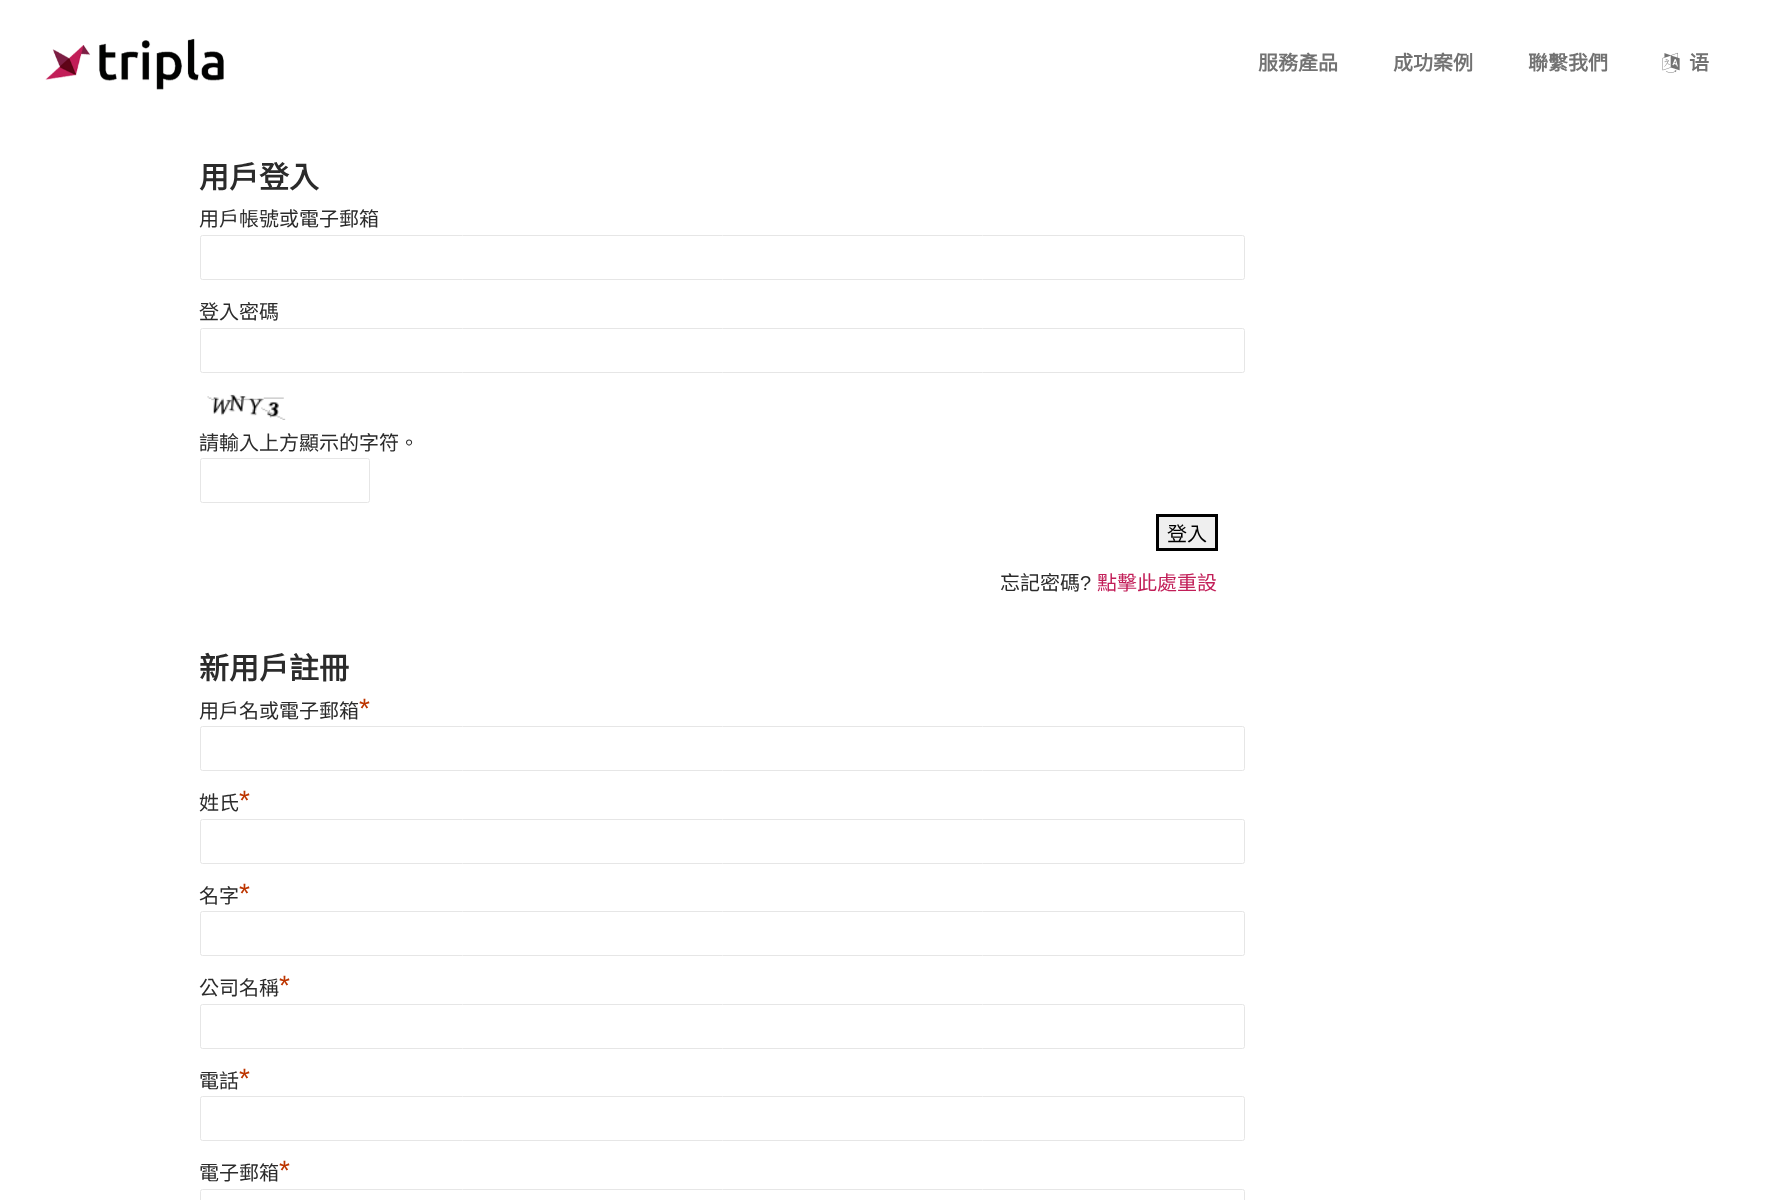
(async () => {
    const canvas = document.querySelector("canvas");
    canvas.width = 1773;
    canvas.height = 1200;
    const context = canvas.getContext("2d");
    context.miterLimit = 4;
    context.fontKerning = "normal";
    function write(s, x, y, font, color) {
        context.font = font;
        context.fillStyle = color;
        context.fillText(s, x, y);
    }
    function block(x, y, w, h, color) {
        context.fillStyle = color;
        context.fillRect(x, y, w, h);
    }
    async function photo(src, x, y, w, h) {
        const img = new Image();
        img.src = src;
        await img.decode();
        context.drawImage(img, x, y, w, h);
    }

    block(0, 0, 1773, 1200, "rgb(255, 255, 255)");
    await photo("media/1.png", 45, 38, 179, 52);
    write("服務產品", 1258, 70, "bold 20px Noto Sans CJK TC", "rgb(114, 114, 114)");
    write("成功案例", 1393, 70, "bold 20px Noto Sans CJK TC", "rgb(114, 114, 114)");
    write("聯繫我們", 1528, 70, "bold 20px Noto Sans CJK TC", "rgb(114, 114, 114)");
    await photo("media/2.png", 1662, 52, 18, 21);
    write("语", 1689, 70, "bold 20px Noto Sans CJK TC", "rgb(114, 114, 114)");
    write("用戶登入", 199, 188, "bold 30px Noto Sans CJK TC", "rgb(43, 43, 43)");
    write("用戶帳號或電子郵箱", 199, 226, "20px Noto Sans CJK TC", "rgb(43, 43, 43)");
    context.beginPath();
    context.roundRect(200.5, 235.5, 1044, 44, 2);
    context.strokeStyle = "rgb(230, 230, 230)";
    context.stroke();
    write("登入密碼", 199, 319, "20px Noto Sans CJK TC", "rgb(43, 43, 43)");
    context.beginPath();
    context.roundRect(200.5, 328.5, 1044, 44, 2);
    context.stroke();
    await photo("media/3.png", 207, 394, 79, 26);
    write("請輸入上方顯示的字符。", 199, 450, "20px Noto Sans CJK TC", "rgb(43, 43, 43)");
    context.beginPath();
    context.roundRect(200.5, 458.5, 169, 44, 2);
    context.stroke();
    context.fillStyle = "rgb(239, 239, 239)";
    context.beginPath();
    context.rect(1157.5, 515.5, 59, 34);
    context.fill();
    context.strokeStyle = "rgb(0, 0, 0)";
    context.lineWidth = 3;
    context.stroke();
    write("登入", 1167, 541, "20px Noto Sans CJK TC", "rgb(0, 0, 0)");
    write("忘記密碼", 1000, 590, "20px Noto Sans CJK TC", "rgb(43, 43, 43)");
    write("?", 1080, 590, "20px Liberation Sans", "rgb(43, 43, 43)");
    write("點擊此處重設", 1097, 590, "20px Noto Sans CJK TC", "rgb(194, 30, 88)");
    write("新用戶註冊", 199, 679, "bold 30px Noto Sans CJK TC", "rgb(43, 43, 43)");
    write("用戶名或電子郵箱", 199, 718, "20px Noto Sans CJK TC", "rgb(43, 43, 43)");
    write("*", 359, 718, "28px Liberation Sans", "rgb(189, 53, 0)");
    context.beginPath();
    context.roundRect(200.5, 726.5, 1044, 44, 2);
    context.strokeStyle = "rgb(230, 230, 230)";
    context.lineWidth = 1;
    context.stroke();
    write("姓氏", 199, 810, "20px Noto Sans CJK TC", "rgb(43, 43, 43)");
    write("*", 239, 810, "28px Liberation Sans", "rgb(189, 53, 0)");
    context.beginPath();
    context.roundRect(200.5, 819.5, 1044, 44, 2);
    context.stroke();
    write("名字", 199, 903, "20px Noto Sans CJK TC", "rgb(43, 43, 43)");
    write("*", 239, 903, "28px Liberation Sans", "rgb(189, 53, 0)");
    context.beginPath();
    context.roundRect(200.5, 911.5, 1044, 44, 2);
    context.stroke();
    write("公司名稱", 199, 995, "20px Noto Sans CJK TC", "rgb(43, 43, 43)");
    write("*", 279, 995, "28px Liberation Sans", "rgb(189, 53, 0)");
    context.beginPath();
    context.roundRect(200.5, 1004.5, 1044, 44, 2);
    context.stroke();
    write("電話", 199, 1088, "20px Noto Sans CJK TC", "rgb(43, 43, 43)");
    write("*", 239, 1088, "28px Liberation Sans", "rgb(189, 53, 0)");
    context.beginPath();
    context.roundRect(200.5, 1096.5, 1044, 44, 2);
    context.stroke();
    write("電子郵箱", 199, 1180, "20px Noto Sans CJK TC", "rgb(43, 43, 43)");
    write("*", 279, 1180, "28px Liberation Sans", "rgb(189, 53, 0)");
    context.beginPath();
    context.roundRect(200.5, 1189.5, 1044, 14, 2);
    context.stroke();
})();
